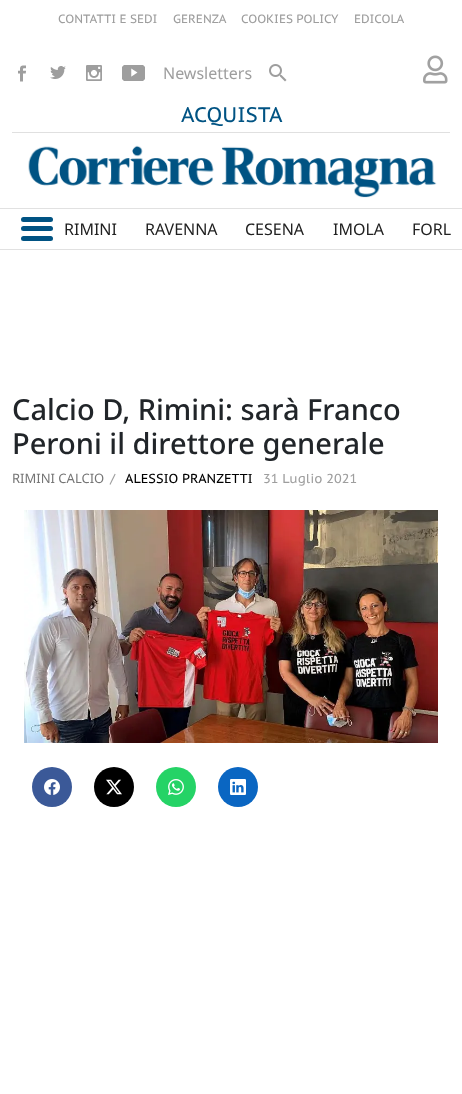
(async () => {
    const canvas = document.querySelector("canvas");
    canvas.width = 462;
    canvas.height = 1094;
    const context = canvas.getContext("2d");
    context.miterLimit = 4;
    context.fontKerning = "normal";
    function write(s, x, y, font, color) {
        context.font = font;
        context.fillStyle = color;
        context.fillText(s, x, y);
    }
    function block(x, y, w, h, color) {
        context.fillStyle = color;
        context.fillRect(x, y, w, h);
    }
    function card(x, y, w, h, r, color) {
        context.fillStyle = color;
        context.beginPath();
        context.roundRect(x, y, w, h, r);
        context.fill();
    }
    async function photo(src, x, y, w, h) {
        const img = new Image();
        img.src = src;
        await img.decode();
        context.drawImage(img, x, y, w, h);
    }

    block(0, 0, 462, 1094, "rgb(255, 255, 255)");
    write("CONTATTI E SEDI", 58, 23, "12px PT Sans Caption", "rgb(158, 158, 158)");
    write("GERENZA", 173, 23, "12px PT Sans Caption", "rgb(158, 158, 158)");
    write("COOKIES POLICY", 241, 23, "12px PT Sans Caption", "rgb(158, 158, 158)");
    write("EDICOLA", 354, 23, "12px PT Sans Caption", "rgb(158, 158, 158)");
    await photo("media/1.png", 18, 65, 8, 17);
    await photo("media/2.png", 50, 66, 16, 13);
    await photo("media/3.png", 86, 65, 16, 16);
    await photo("media/4.png", 122, 65, 23, 16);
    write("Newsletters", 163, 79, "16px Noto Sans", "rgb(158, 158, 158)");
    await photo("media/5.png", 269, 64, 18, 18);
    await photo("media/6.png", 423, 55, 25, 29);
    write("ACQUISTA", 181, 122, "21px PT Sans Caption", "rgb(0, 83, 131)");
    block(12, 132, 438, 1, "rgb(224, 224, 224)");
    await photo("media/7.png", 28, 145, 409, 53);
    block(0, 208, 462, 1, "rgb(225, 225, 225)");
    block(0, 249, 462, 1, "rgb(225, 225, 225)");
    card(21, 217, 32, 5, 2.5, "rgb(0, 83, 131)");
    card(21, 226, 32, 5, 2.5, "rgb(0, 83, 131)");
    card(21, 236, 32, 5, 2.5, "rgb(0, 83, 131)");
    write("RIMINI", 64, 235, "16px Noto Sans", "rgb(33, 33, 33)");
    write("RAVENNA", 145, 235, "16px Noto Sans", "rgb(33, 33, 33)");
    write("CESENA", 245, 235, "16px Noto Sans", "rgb(33, 33, 33)");
    write("IMOLA", 333, 235, "16px Noto Sans", "rgb(33, 33, 33)");
    write("FORL", 412, 235, "16px Noto Sans", "rgb(33, 33, 33)");
    write("Calcio D, Rimini: sarà Franco", 12, 420, "500 29px Noto Sans", "rgb(33, 37, 41)");
    write("Peroni il direttore generale", 12, 454, "500 29px Noto Sans", "rgb(33, 37, 41)");
    write("RIMINI CALCIO", 12, 483, "13px Noto Sans", "rgb(117, 117, 117)");
    write("/", 110, 483, "13px PT Sans Caption", "rgb(158, 158, 158)");
    write("ALESSIO PRANZETTI", 125, 483, "13px PT Sans Caption", "rgb(0, 0, 0)");
    write("31 Luglio 2021", 263, 483, "13px PT Sans Caption", "rgb(158, 158, 158)");
    await photo("media/8.png", 24, 510, 414, 233);
    context.fillStyle = "rgb(59, 89, 152)";
    context.beginPath();
    context.arc(52, 787, 20, 0, Math.PI * 2);
    context.fill();
    await photo("media/9.png", 44, 779, 16, 16);
    context.fillStyle = "rgb(0, 0, 0)";
    context.beginPath();
    context.arc(114, 787, 20, 0, Math.PI * 2);
    context.fill();
    await photo("media/10.png", 106, 779, 16, 16);
    context.fillStyle = "rgb(37, 211, 102)";
    context.beginPath();
    context.arc(176, 787, 20, 0, Math.PI * 2);
    context.fill();
    await photo("media/11.png", 168, 779, 16, 16);
    context.fillStyle = "rgb(10, 102, 194)";
    context.beginPath();
    context.arc(238, 787, 20, 0, Math.PI * 2);
    context.fill();
    await photo("media/12.png", 230, 779, 16, 16);
})();
